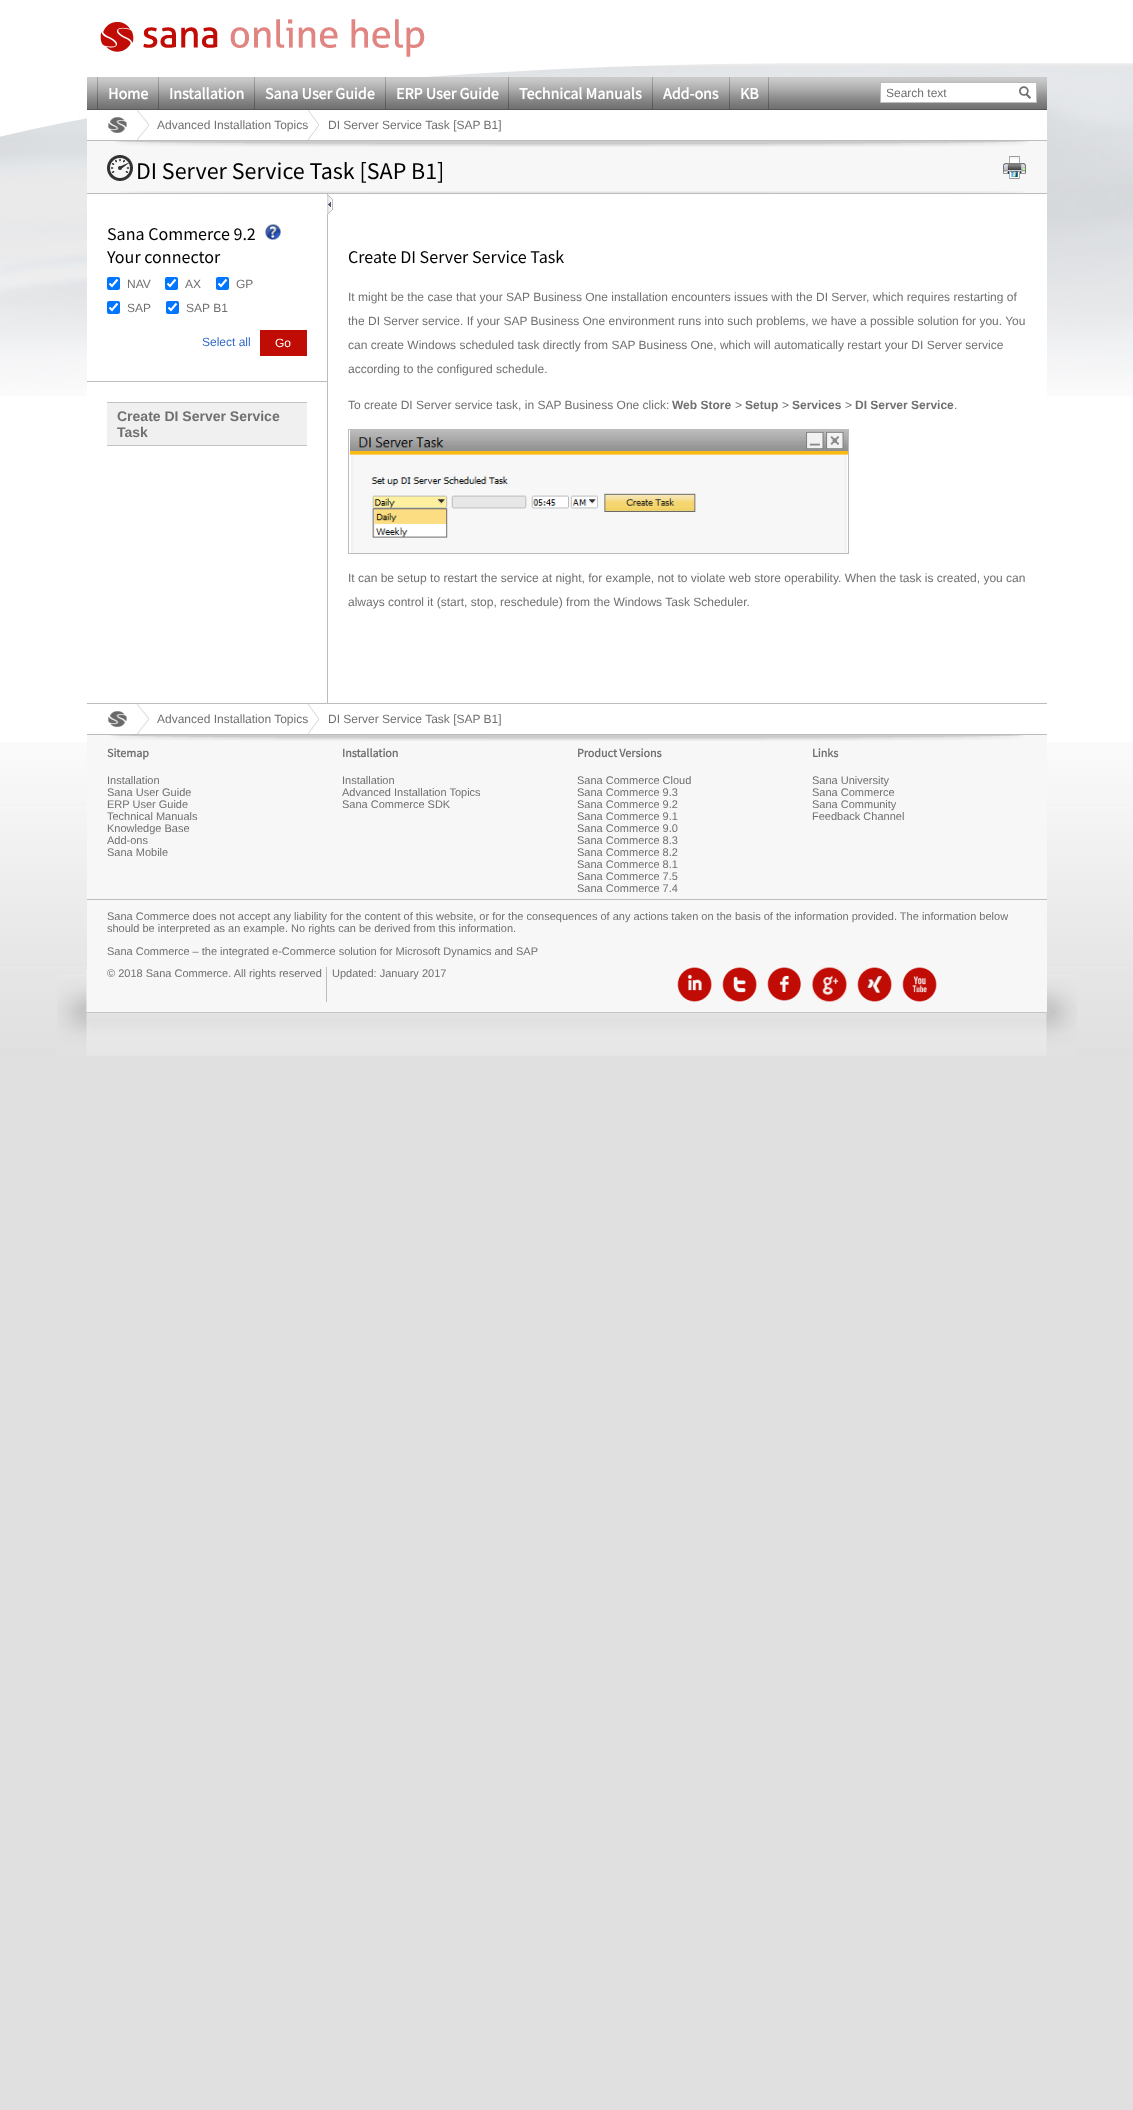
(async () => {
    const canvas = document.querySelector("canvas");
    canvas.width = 1133;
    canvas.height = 2110;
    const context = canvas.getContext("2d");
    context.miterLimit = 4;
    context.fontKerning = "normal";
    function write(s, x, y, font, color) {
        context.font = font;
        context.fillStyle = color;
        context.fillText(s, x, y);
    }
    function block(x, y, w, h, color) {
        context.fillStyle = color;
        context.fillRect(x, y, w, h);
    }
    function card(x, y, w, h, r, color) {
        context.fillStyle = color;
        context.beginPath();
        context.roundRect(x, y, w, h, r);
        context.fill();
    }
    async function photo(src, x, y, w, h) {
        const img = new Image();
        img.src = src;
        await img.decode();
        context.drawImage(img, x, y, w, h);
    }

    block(0, 0, 1133, 2110, "rgb(224, 224, 224)");
    block(0, 0, 1133, 742, "rgb(255, 255, 255)");
    await photo("media/1.png", 0, 742, 1133, 320);
    await photo("media/2.png", 57, 970, 1020, 86);
    await photo("media/3.png", 0, 63, 1133, 333);
    await photo("media/4.png", 100, 19, 325, 38);
    await photo("media/5.png", 87, 77, 960, 32);
    block(87, 109, 960, 1, "rgb(86, 86, 86)");
    await photo("media/6.png", 97, 77, 672, 32);
    await photo("media/7.png", 98, 77, 60, 32);
    write("Home", 108, 99, "bold 16px Source Sans Pro", "rgb(255, 255, 255)");
    await photo("media/8.png", 159, 77, 95, 32);
    write("Installation", 169, 99, "bold 16px Source Sans Pro", "rgb(255, 255, 255)");
    await photo("media/9.png", 255, 77, 130, 32);
    write("Sana User Guide", 265, 99, "bold 16px Source Sans Pro", "rgb(255, 255, 255)");
    await photo("media/10.png", 386, 77, 122, 32);
    write("ERP User Guide", 396, 99, "bold 16px Source Sans Pro", "rgb(255, 255, 255)");
    await photo("media/11.png", 509, 77, 143, 32);
    write("Technical Manuals", 519, 99, "bold 16px Source Sans Pro", "rgb(255, 255, 255)");
    await photo("media/12.png", 653, 77, 76, 32);
    write("Add-ons", 663, 99, "bold 16px Source Sans Pro", "rgb(255, 255, 255)");
    await photo("media/13.png", 730, 77, 38, 32);
    write("KB", 740, 99, "bold 16px Source Sans Pro", "rgb(255, 255, 255)");
    block(881, 83, 155, 19, "rgb(255, 255, 255)");
    block(880, 82, 157, 1, "rgb(188, 188, 188)");
    block(880, 102, 137, 1, "rgb(188, 188, 188)");
    block(880, 82, 1, 21, "rgb(188, 188, 188)");
    write("Search text", 886, 97, "12px Liberation Sans", "rgb(112, 112, 112)");
    block(1036, 82, 1, 21, "rgb(188, 188, 188)");
    block(1017, 102, 20, 1, "rgb(188, 188, 188)");
    await photo("media/14.png", 1019, 86, 12, 13);
    block(87, 110, 960, 30, "rgb(255, 255, 255)");
    block(87, 140, 960, 1, "rgb(188, 188, 188)");
    await photo("media/15.png", 108, 117, 19, 16);
    await photo("media/16.png", 137, 110, 12, 30);
    write("Advanced Installation Topics", 157, 129, "12px Liberation Sans", "rgb(112, 112, 112)");
    await photo("media/17.png", 308, 110, 11, 30);
    write("DI Server Service Task [SAP B1]", 328, 129, "12px Liberation Sans", "rgb(112, 112, 112)");
    block(87, 194, 960, 202, "rgb(255, 255, 255)");
    block(87, 141, 960, 52, "rgb(247, 247, 247)");
    block(87, 193, 960, 1, "rgb(188, 188, 188)");
    await photo("media/18.png", 114, 141, 915, 6);
    await photo("media/19.png", 107, 155, 26, 26);
    write("DI Server Service Task [SAP B1]", 136, 179, "24px Source Sans Pro", "rgb(0, 0, 0)");
    await photo("media/20.png", 1003, 156, 23, 23);
    await photo("media/21.png", 119, 191, 905, 2);
    block(87, 381, 241, 1, "rgb(188, 188, 188)");
    block(327, 194, 1, 509, "rgb(188, 188, 188)");
    await photo("media/22.png", 327, 195, 6, 19);
    write("Sana Commerce 9.2", 107, 240, "18px Source Sans Pro", "rgb(0, 0, 0)");
    write("Your connector", 107, 263, "18px Source Sans Pro", "rgb(0, 0, 0)");
    await photo("media/23.png", 265, 224, 16, 16);
    card(107, 277, 13, 13, 2, "rgb(0, 117, 255)");
    context.beginPath();
    context.moveTo(109.5, 283.5);
    context.lineTo(112, 286);
    context.lineTo(117.5, 279.5);
    context.strokeStyle = "rgb(255, 255, 255)";
    context.lineWidth = 2.1;
    context.stroke();
    write("NAV", 127, 288, "12px Liberation Sans", "rgb(112, 112, 112)");
    card(165, 277, 13, 13, 2, "rgb(0, 117, 255)");
    context.beginPath();
    context.moveTo(167.5, 283.5);
    context.lineTo(170, 286);
    context.lineTo(175.5, 279.5);
    context.stroke();
    write("AX", 185, 288, "12px Liberation Sans", "rgb(112, 112, 112)");
    card(216, 277, 13, 13, 2, "rgb(0, 117, 255)");
    context.beginPath();
    context.moveTo(218.5, 283.5);
    context.lineTo(221, 286);
    context.lineTo(226.5, 279.5);
    context.stroke();
    write("GP", 236, 288, "12px Liberation Sans", "rgb(112, 112, 112)");
    card(107, 301, 13, 13, 2, "rgb(0, 117, 255)");
    context.beginPath();
    context.moveTo(109.5, 307.5);
    context.lineTo(112, 310);
    context.lineTo(117.5, 303.5);
    context.stroke();
    write("SAP", 127, 312, "12px Liberation Sans", "rgb(112, 112, 112)");
    card(166, 301, 13, 13, 2, "rgb(0, 117, 255)");
    context.beginPath();
    context.moveTo(168.5, 307.5);
    context.lineTo(171, 310);
    context.lineTo(176.5, 303.5);
    context.stroke();
    write("SAP B1", 186, 312, "12px Liberation Sans", "rgb(112, 112, 112)");
    write("Select all", 202, 346, "12px Liberation Sans", "rgb(49, 106, 197)");
    block(260, 330, 47, 26, "rgb(193, 12, 6)");
    write("Go", 275, 347, "12px Liberation Sans", "rgb(255, 255, 255)");
    block(107, 445, 200, 1, "rgb(195, 195, 195)");
    block(107, 403, 200, 42, "rgb(240, 240, 240)");
    block(107, 402, 200, 1, "rgb(195, 195, 195)");
    write("Create DI Server Service", 117, 421, "bold 14px Liberation Sans", "rgb(112, 112, 112)");
    write("Task", 117, 437, "bold 14px Liberation Sans", "rgb(112, 112, 112)");
    write("Create DI Server Service Task", 348, 263, "18px Source Sans Pro", "rgb(0, 0, 0)");
    write("It might be the case that your SAP Business One installation encounters issues with the DI Server, which requires restarting of", 348, 301, "12px Liberation Sans", "rgb(112, 112, 112)");
    write("the DI Server service. If your SAP Business One environment runs into such problems, we have a possible solution for you. You", 348, 325, "12px Liberation Sans", "rgb(112, 112, 112)");
    write("can create Windows scheduled task directly from SAP Business One, which will automatically restart your DI Server service", 348, 349, "12px Liberation Sans", "rgb(112, 112, 112)");
    write("according to the configured schedule.", 348, 373, "12px Liberation Sans", "rgb(112, 112, 112)");
    write("To create DI Server service task, in SAP Business One click:", 348, 409, "12px Liberation Sans", "rgb(112, 112, 112)");
    write("Web Store", 672, 409, "bold 12px Liberation Sans", "rgb(112, 112, 112)");
    write(">", 735, 409, "12px Liberation Sans", "rgb(112, 112, 112)");
    write("Setup", 745, 409, "bold 12px Liberation Sans", "rgb(112, 112, 112)");
    write(">", 782, 409, "12px Liberation Sans", "rgb(112, 112, 112)");
    write("Services", 792, 409, "bold 12px Liberation Sans", "rgb(112, 112, 112)");
    write(">", 845, 409, "12px Liberation Sans", "rgb(112, 112, 112)");
    write("DI Server Service", 855, 409, "bold 12px Liberation Sans", "rgb(112, 112, 112)");
    write(".", 954, 409, "12px Liberation Sans", "rgb(112, 112, 112)");
    context.strokeStyle = "rgb(188, 188, 188)";
    context.lineWidth = 1;
    context.strokeRect(348.5, 429.5, 500, 124);
    await photo("media/24.png", 350, 430, 498, 123);
    write("It can be setup to restart the service at night, for example, not to violate web store operability. When the task is created, you can", 348, 582, "12px Liberation Sans", "rgb(112, 112, 112)");
    write("always control it (start, stop, reschedule) from the Windows Task Scheduler.", 348, 606, "12px Liberation Sans", "rgb(112, 112, 112)");
    block(87, 703, 960, 1, "rgb(188, 188, 188)");
    await photo("media/15.png", 108, 711, 19, 16);
    await photo("media/16.png", 137, 704, 12, 30);
    write("Advanced Installation Topics", 157, 723, "12px Liberation Sans", "rgb(112, 112, 112)");
    await photo("media/17.png", 308, 704, 11, 30);
    write("DI Server Service Task [SAP B1]", 328, 723, "12px Liberation Sans", "rgb(112, 112, 112)");
    block(87, 735, 960, 164, "rgb(247, 247, 247)");
    await photo("media/18.png", 109, 735, 915, 6);
    block(87, 734, 960, 1, "rgb(188, 188, 188)");
    write("Sitemap", 107, 757, "bold 12px Source Sans Pro", "rgb(112, 112, 112)");
    write("Installation", 107, 784, "11px Liberation Sans", "rgb(112, 112, 112)");
    write("Sana User Guide", 107, 796, "11px Liberation Sans", "rgb(112, 112, 112)");
    write("ERP User Guide", 107, 808, "11px Liberation Sans", "rgb(112, 112, 112)");
    write("Technical Manuals", 107, 820, "11px Liberation Sans", "rgb(112, 112, 112)");
    write("Knowledge Base", 107, 832, "11px Liberation Sans", "rgb(112, 112, 112)");
    write("Add-ons", 107, 844, "11px Liberation Sans", "rgb(112, 112, 112)");
    write("Sana Mobile", 107, 856, "11px Liberation Sans", "rgb(112, 112, 112)");
    write("Installation", 342, 757, "bold 12px Source Sans Pro", "rgb(112, 112, 112)");
    write("Installation", 342, 784, "11px Liberation Sans", "rgb(112, 112, 112)");
    write("Advanced Installation Topics", 342, 796, "11px Liberation Sans", "rgb(112, 112, 112)");
    write("Sana Commerce SDK", 342, 808, "11px Liberation Sans", "rgb(112, 112, 112)");
    write("Product Versions", 577, 757, "bold 12px Source Sans Pro", "rgb(112, 112, 112)");
    write("Sana Commerce Cloud", 577, 784, "11px Liberation Sans", "rgb(112, 112, 112)");
    write("Sana Commerce 9.3", 577, 796, "11px Liberation Sans", "rgb(112, 112, 112)");
    write("Sana Commerce 9.2", 577, 808, "11px Liberation Sans", "rgb(112, 112, 112)");
    write("Sana Commerce 9.1", 577, 820, "11px Liberation Sans", "rgb(112, 112, 112)");
    write("Sana Commerce 9.0", 577, 832, "11px Liberation Sans", "rgb(112, 112, 112)");
    write("Sana Commerce 8.3", 577, 844, "11px Liberation Sans", "rgb(112, 112, 112)");
    write("Sana Commerce 8.2", 577, 856, "11px Liberation Sans", "rgb(112, 112, 112)");
    write("Sana Commerce 8.1", 577, 868, "11px Liberation Sans", "rgb(112, 112, 112)");
    write("Sana Commerce 7.5", 577, 880, "11px Liberation Sans", "rgb(112, 112, 112)");
    write("Sana Commerce 7.4", 577, 892, "11px Liberation Sans", "rgb(112, 112, 112)");
    write("Links", 812, 757, "bold 12px Source Sans Pro", "rgb(112, 112, 112)");
    write("Sana University", 812, 784, "11px Liberation Sans", "rgb(112, 112, 112)");
    write("Sana Commerce", 812, 796, "11px Liberation Sans", "rgb(112, 112, 112)");
    write("Sana Community", 812, 808, "11px Liberation Sans", "rgb(112, 112, 112)");
    write("Feedback Channel", 812, 820, "11px Liberation Sans", "rgb(112, 112, 112)");
    block(87, 900, 960, 112, "rgb(247, 247, 247)");
    block(87, 899, 960, 1, "rgb(188, 188, 188)");
    write("Sana Commerce does not accept any liability for the content of this website, or for the consequences of any actions taken on the basis of the information provided. The information below", 107, 920, "11px Liberation Sans", "rgb(112, 112, 112)");
    write("should be interpreted as an example. No rights can be derived from this information.", 107, 932, "11px Liberation Sans", "rgb(112, 112, 112)");
    write("Sana Commerce – the integrated e-Commerce solution for Microsoft Dynamics and SAP", 107, 955, "11px Liberation Sans", "rgb(112, 112, 112)");
    write("© 2018 Sana Commerce. All rights reserved", 107, 977, "11px Liberation Sans", "rgb(112, 112, 112)");
    block(326, 967, 1, 35, "rgb(188, 188, 188)");
    write("Updated: January 2017", 332, 977, "11px Liberation Sans", "rgb(112, 112, 112)");
    await photo("media/25.png", 677, 967, 35, 35);
    await photo("media/26.png", 722, 967, 35, 35);
    await photo("media/27.png", 767, 967, 34, 34);
    await photo("media/28.png", 812, 967, 35, 35);
    await photo("media/29.png", 857, 967, 35, 35);
    await photo("media/30.png", 902, 967, 35, 35);
})();
